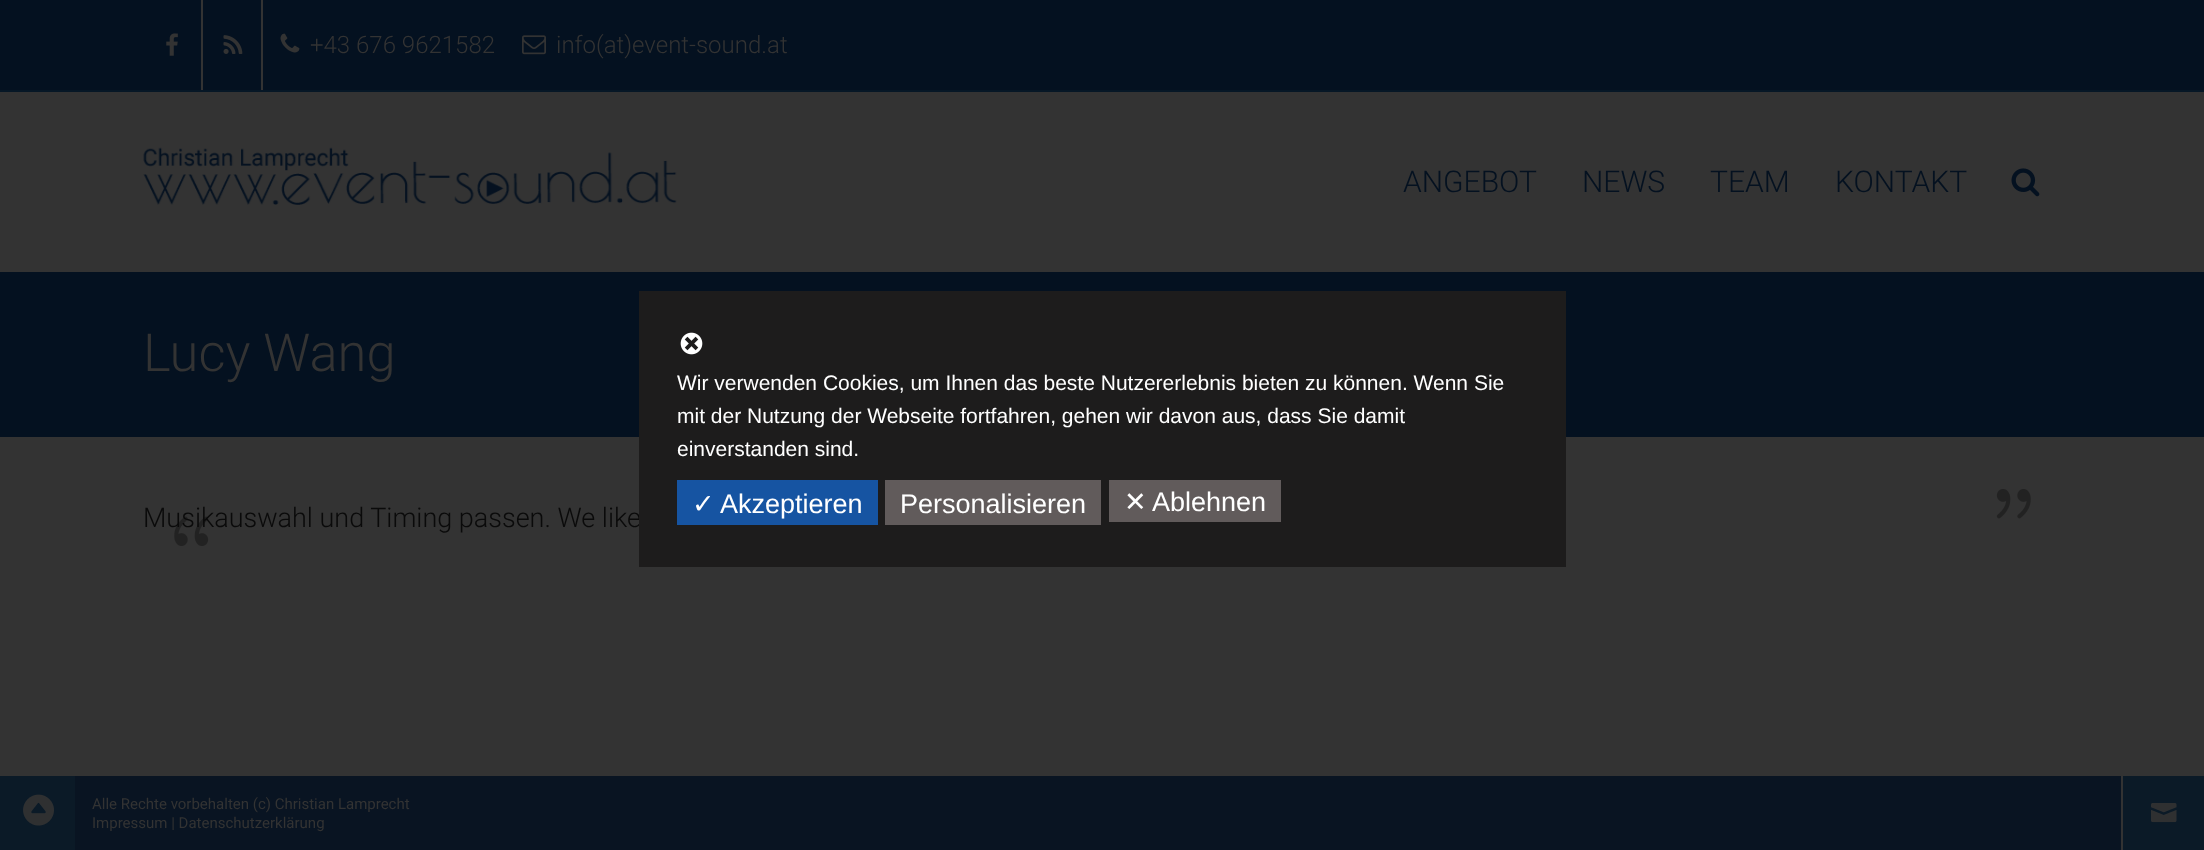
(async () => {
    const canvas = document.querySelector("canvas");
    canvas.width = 2204;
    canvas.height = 850;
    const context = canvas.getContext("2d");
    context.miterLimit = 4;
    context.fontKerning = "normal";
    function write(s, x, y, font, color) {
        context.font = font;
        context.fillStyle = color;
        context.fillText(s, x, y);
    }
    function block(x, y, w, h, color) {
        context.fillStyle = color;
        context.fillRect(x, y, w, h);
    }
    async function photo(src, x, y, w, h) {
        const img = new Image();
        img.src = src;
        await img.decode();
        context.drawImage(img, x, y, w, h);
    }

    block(0, 0, 2204, 850, "rgb(51, 51, 51)");
    block(0, 0, 2204, 90, "rgb(4, 17, 32)");
    block(0, 90, 2204, 2, "rgb(6, 23, 38)");
    block(201, 0, 2, 90, "rgb(51, 51, 51)");
    await photo("media/1.png", 166, 33, 12, 23);
    block(261, 0, 2, 90, "rgb(51, 51, 51)");
    await photo("media/2.png", 223, 35, 20, 19);
    await photo("media/3.png", 280, 33, 20, 20);
    write("+43 676 9621582", 310, 53, "300 24px Roboto", "rgb(51, 51, 51)");
    await photo("media/4.png", 522, 35, 24, 20);
    write("info(at)event-sound.at", 556, 53, "300 24px Roboto", "rgb(51, 51, 51)");
    await photo("media/5.png", 143, 147, 534, 58);
    write("ANGEBOT", 1403, 192, "300 30px Roboto", "rgb(4, 17, 32)");
    write("NEWS", 1582, 192, "300 30px Roboto", "rgb(4, 17, 32)");
    write("TEAM", 1710, 192, "300 30px Roboto", "rgb(4, 17, 32)");
    write("KONTAKT", 1835, 192, "300 30px Roboto", "rgb(4, 17, 32)");
    await photo("media/6.png", 2011, 168, 29, 29);
    block(0, 272, 2204, 165, "rgb(4, 17, 32)");
    write("Lucy Wang", 143, 371, "300 52.5px Roboto", "rgb(51, 51, 51)");
    write("Musikauswahl und Timing passen. We like", 143, 527, "300 27px Roboto", "rgb(10, 10, 10)");
    await photo("media/7.png", 1996, 489, 35, 30);
    await photo("media/8.png", 174, 516, 35, 30);
    block(75, 776, 2046, 74, "rgb(9, 20, 34)");
    block(0, 776, 75, 74, "rgb(11, 26, 39)");
    await photo("media/9.png", 23, 794, 31, 32);
    write("Alle Rechte vorbehalten (c) Christian Lamprecht", 92, 809, "15px Roboto", "rgb(51, 51, 51)");
    write("Impressum | Datenschutzerklärung", 92, 828, "15px Roboto", "rgb(51, 51, 51)");
    block(2123, 776, 81, 74, "rgb(11, 26, 39)");
    await photo("media/10.png", 2151, 803, 26, 20);
    block(639, 291, 927, 276, "rgb(29, 28, 28)");
    await photo("media/11.png", 680, 332, 23, 23);
    write("Wir verwenden Cookies, um Ihnen das beste Nutzererlebnis bieten zu können. Wenn Sie", 677, 390, "21px Liberation Sans", "rgb(255, 255, 255)");
    write("mit der Nutzung der Webseite fortfahren, gehen wir davon aus, dass Sie damit", 677, 423, "21px Liberation Sans", "rgb(255, 255, 255)");
    write("einverstanden sind.", 677, 456, "21px Liberation Sans", "rgb(255, 255, 255)");
    block(677, 480, 201, 45, "rgb(22, 84, 162)");
    write("✓", 692, 513, "27px DejaVu Sans", "rgb(255, 255, 255)");
    write("Akzeptieren", 720, 513, "27px Liberation Sans", "rgb(255, 255, 255)");
    block(885, 480, 216, 45, "rgb(97, 91, 91)");
    write("Personalisieren", 900, 513, "27px Liberation Sans", "rgb(255, 255, 255)");
    block(1109, 480, 172, 42, "rgb(97, 91, 91)");
    write("✕", 1124, 511, "27px DejaVu Sans", "rgb(255, 255, 255)");
    write("Ablehnen", 1152, 511, "27px Liberation Sans", "rgb(255, 255, 255)");
})();
